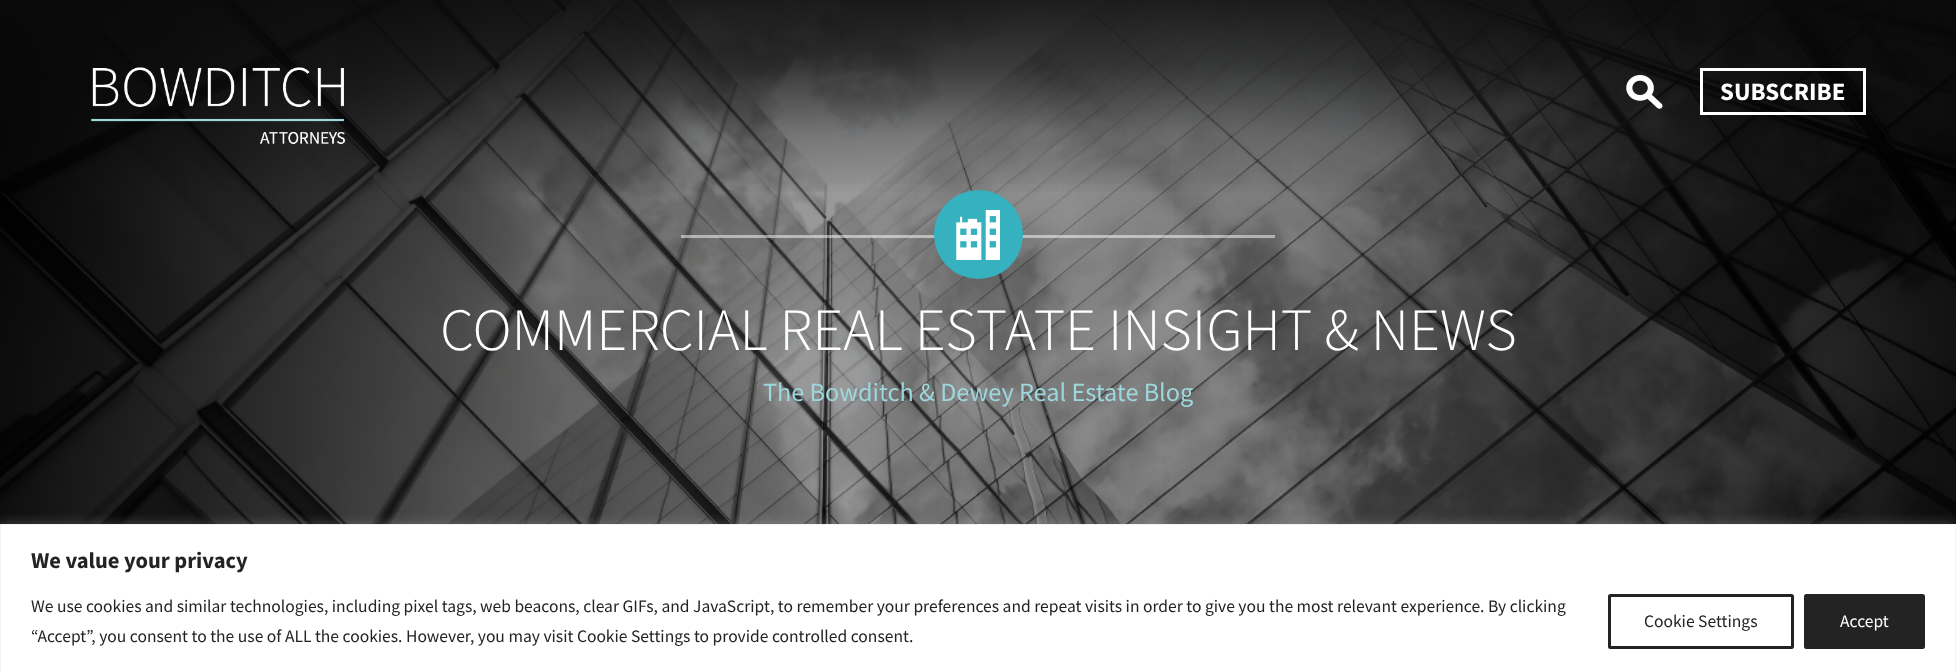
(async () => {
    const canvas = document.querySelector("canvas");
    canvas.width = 1956;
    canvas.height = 672;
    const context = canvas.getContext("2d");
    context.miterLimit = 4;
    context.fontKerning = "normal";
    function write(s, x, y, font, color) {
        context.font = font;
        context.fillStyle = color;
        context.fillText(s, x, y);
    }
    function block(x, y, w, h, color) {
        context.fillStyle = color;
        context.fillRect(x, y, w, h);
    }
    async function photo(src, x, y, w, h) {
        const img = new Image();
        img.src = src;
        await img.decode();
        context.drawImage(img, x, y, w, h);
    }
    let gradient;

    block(0, 0, 1956, 672, "rgb(255, 255, 255)");
    await photo("media/3.png", 0, 0, 1956, 524);
    block(681, 235, 594, 3, "rgba(255, 255, 255, 0.5)");
    context.fillStyle = "rgb(54, 177, 191)";
    context.beginPath();
    context.arc(978.5, 234.5, 44.5, 0, Math.PI * 2);
    context.fill();
    gradient = context.createLinearGradient(978, 0, 978, 199);
    gradient.addColorStop(0, "rgba(10, 10, 10, 0.83)");
    gradient.addColorStop(0.33, "rgba(10, 10, 10, 0.6)");
    gradient.addColorStop(0.67, "rgba(10, 10, 10, 0.2)");
    gradient.addColorStop(1, "rgba(10, 10, 10, 0)");
    context.fillStyle = gradient;
    context.fillRect(0, 0, 1956, 192);
    gradient = context.createLinearGradient(978, 0, 978, 214);
    gradient.addColorStop(0, "rgba(10, 10, 10, 0.22)");
    gradient.addColorStop(0.33, "rgba(10, 10, 10, 0.16)");
    gradient.addColorStop(0.67, "rgba(10, 10, 10, 0.05)");
    gradient.addColorStop(1, "rgba(10, 10, 10, 0)");
    context.fillStyle = gradient;
    context.fillRect(337, 0, 1332, 184);
    await photo("media/1.png", 91, 67, 254, 78);
    await photo("media/2.png", 1626, 75, 37, 34);
    context.strokeStyle = "rgb(255, 255, 255)";
    context.lineWidth = 3;
    context.strokeRect(1701.5, 69.5, 163, 44);
    write("SUBSCRIBE", 1720, 100, "bold 25px Source Sans Pro", "rgb(255, 255, 255)");
    await photo("media/4.png", 956, 210, 44, 50);
    write("COMMERCIAL REAL ESTATE INSIGHT & NEWS", 440, 350, "300 60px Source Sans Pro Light", "rgb(255, 255, 255)");
    write("The Bowditch & Dewey Real Estate Blog", 763, 401, "26.25px Source Sans Pro", "rgb(157, 215, 222)");
    context.fillStyle = "rgba(172, 171, 171, 0.3)";
    context.filter = "blur(6px)";
    context.beginPath();
    context.rect(0, 523, 1956, 148);
    context.fill();
    context.filter = "none";
    context.fillStyle = "rgb(255, 255, 255)";
    context.beginPath();
    context.rect(0.5, 524.5, 1955, 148);
    context.fill();
    context.strokeStyle = "rgb(244, 244, 244)";
    context.lineWidth = 1;
    context.stroke();
    write("We value your privacy", 31, 568, "bold 22.5px Source Sans Pro", "rgb(35, 35, 35)");
    write("We use cookies and similar technologies, including pixel tags, web beacons, clear GIFs, and JavaScript, to remember your preferences and repeat visits in order to give you the most relevant experience. By clicking", 31, 612, "17.5px Source Sans Pro", "rgb(35, 35, 35)");
    write("“Accept”, you consent to the use of ALL the cookies. However, you may visit Cookie Settings to provide controlled consent.", 31, 642, "17.5px Source Sans Pro", "rgb(35, 35, 35)");
    context.beginPath();
    context.roundRect(1609.5, 595.5, 183, 52, 1);
    context.strokeStyle = "rgb(35, 35, 35)";
    context.lineWidth = 3;
    context.stroke();
    write("Cookie Settings", 1644, 627, "17.5px Source Sans Pro", "rgb(35, 35, 35)");
    context.beginPath();
    context.roundRect(1805.5, 595.5, 118, 52, 1);
    context.fill();
    context.stroke();
    write("Accept", 1840, 627, "17.5px Source Sans Pro", "rgb(255, 255, 255)");
})();
